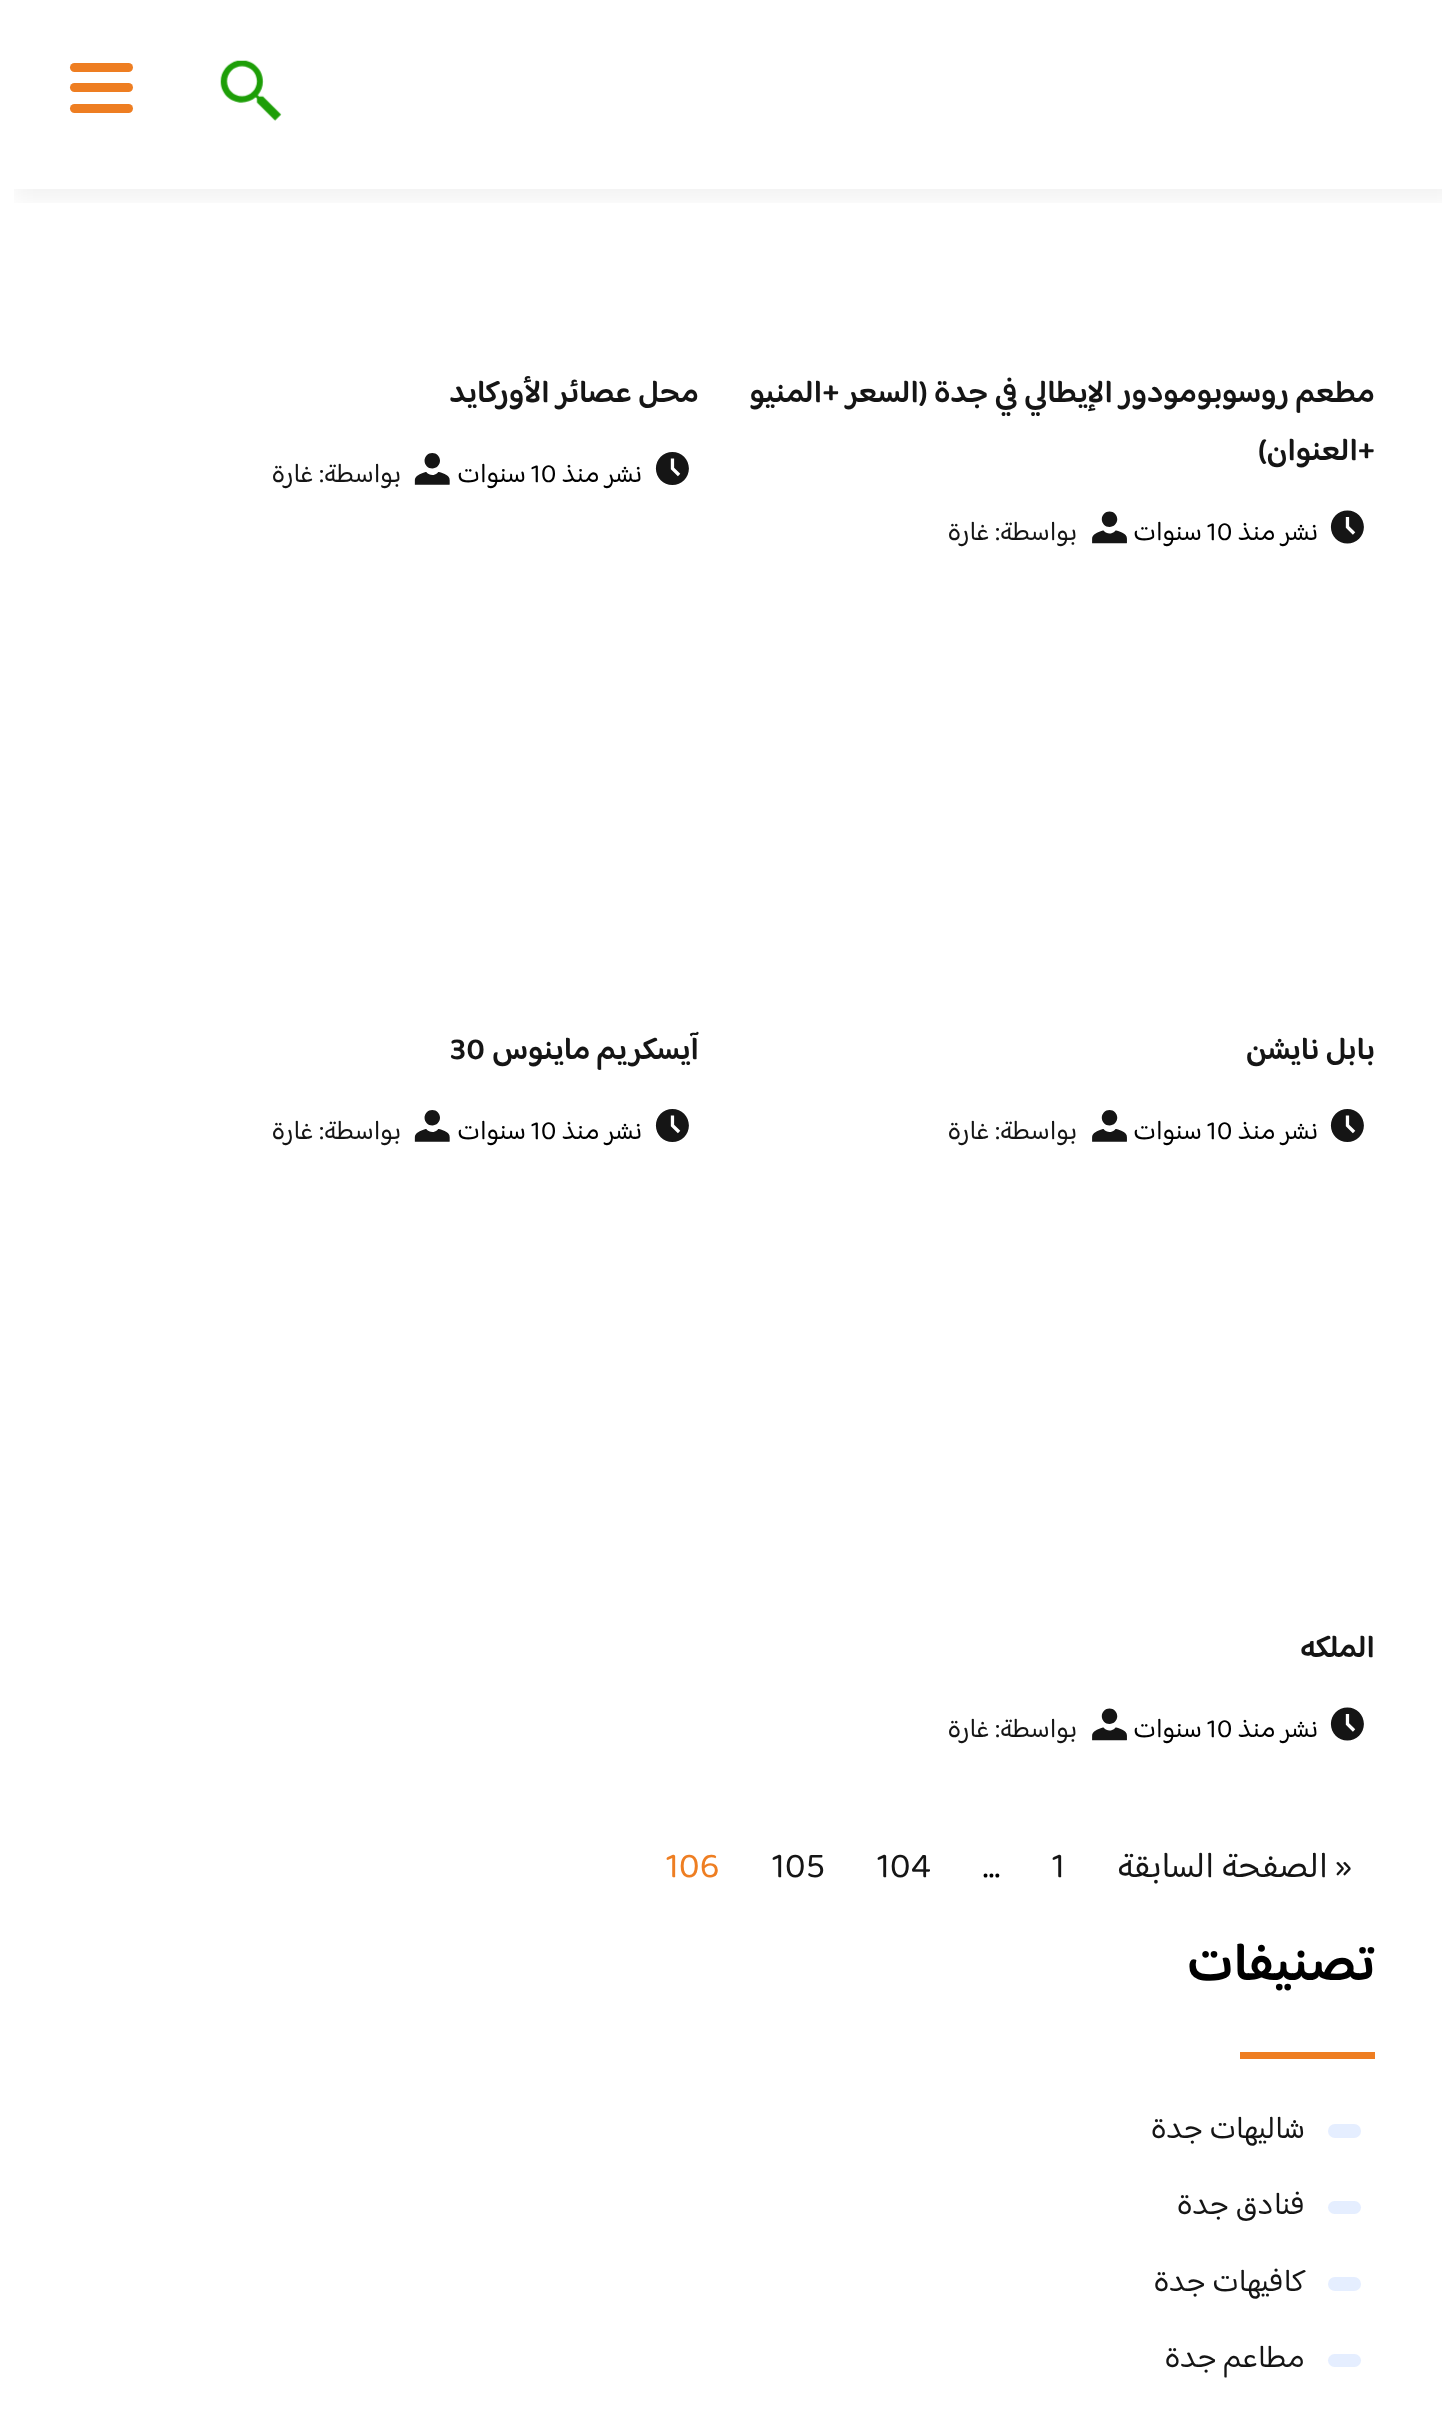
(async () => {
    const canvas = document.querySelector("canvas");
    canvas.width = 1442;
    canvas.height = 2417;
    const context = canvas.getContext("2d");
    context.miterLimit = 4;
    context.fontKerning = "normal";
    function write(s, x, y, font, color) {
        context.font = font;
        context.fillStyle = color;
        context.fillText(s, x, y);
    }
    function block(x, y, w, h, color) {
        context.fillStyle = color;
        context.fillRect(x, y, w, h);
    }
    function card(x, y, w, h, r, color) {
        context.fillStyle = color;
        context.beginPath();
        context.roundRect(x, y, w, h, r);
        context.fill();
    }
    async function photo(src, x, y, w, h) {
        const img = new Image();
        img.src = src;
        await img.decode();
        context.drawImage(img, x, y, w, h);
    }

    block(0, 0, 1442, 2417, "rgb(255, 255, 255)");
    context.save();
    context.beginPath();
    context.rect(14, 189, 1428, 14);
    context.clip();
    context.fillStyle = "rgba(0, 0, 0, 0.05)";
    context.filter = "blur(11px)";
    context.beginPath();
    context.rect(14, 11, 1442, 189);
    context.fill();
    context.filter = "none";
    context.restore();
    await photo("media/1.png", 220, 60, 62, 61);
    card(70, 63, 63, 9, 4.5, "rgb(238, 126, 34)");
    card(70, 83, 63, 9, 4.5, "rgb(238, 126, 34)");
    card(70, 104, 63, 9, 4.5, "rgb(238, 126, 34)");
    context.direction = "rtl";
    write("مطعم روسوبومودور الإيطالي في جدة (السعر +المنيو", 1375, 402, "600 31.5px 'Baloo Bhaijaan 2'", "rgb(21, 21, 21)");
    write("+العنوان)", 1375, 460, "600 31.5px 'Baloo Bhaijaan 2'", "rgb(21, 21, 21)");
    await photo("media/2.png", 1330, 510, 34, 34);
    write("نشر منذ", 1318, 540, "27px 'Baloo Bhaijaan 2'", "rgb(0, 0, 0)");
    context.direction = "ltr";
    write("10", 1207, 540, "27px 'Baloo Bhaijaan 2'", "rgb(0, 0, 0)");
    context.direction = "rtl";
    write("سنوات", 1202, 540, "27px 'Baloo Bhaijaan 2'", "rgb(0, 0, 0)");
    await photo("media/3.png", 1092, 511, 35, 33);
    write("بواسطة: غارة", 1077, 540, "27px 'Baloo Bhaijaan 2'", "rgb(21, 21, 21)");
    write("محل عصائر الأوركايد", 699, 402, "600 31.5px 'Baloo Bhaijaan 2'", "rgb(21, 21, 21)");
    await photo("media/4.png", 655, 452, 34, 33);
    write("نشر منذ", 642, 482, "27px 'Baloo Bhaijaan 2'", "rgb(0, 0, 0)");
    context.direction = "ltr";
    write("10", 531, 482, "27px 'Baloo Bhaijaan 2'", "rgb(0, 0, 0)");
    context.direction = "rtl";
    write("سنوات", 526, 482, "27px 'Baloo Bhaijaan 2'", "rgb(0, 0, 0)");
    await photo("media/5.png", 414, 453, 36, 32);
    write("بواسطة: غارة", 401, 482, "27px 'Baloo Bhaijaan 2'", "rgb(21, 21, 21)");
    write("بابل نايشن", 1375, 1059, "600 31.5px 'Baloo Bhaijaan 2'", "rgb(21, 21, 21)");
    await photo("media/4.png", 1330, 1109, 34, 33);
    write("نشر منذ", 1318, 1139, "27px 'Baloo Bhaijaan 2'", "rgb(0, 0, 0)");
    context.direction = "ltr";
    write("10", 1207, 1139, "27px 'Baloo Bhaijaan 2'", "rgb(0, 0, 0)");
    context.direction = "rtl";
    write("سنوات", 1202, 1139, "27px 'Baloo Bhaijaan 2'", "rgb(0, 0, 0)");
    await photo("media/6.png", 1092, 1110, 35, 32);
    write("بواسطة: غارة", 1077, 1139, "27px 'Baloo Bhaijaan 2'", "rgb(21, 21, 21)");
    write("آيسكريم ماينوس", 699, 1059, "600 31.5px 'Baloo Bhaijaan 2'", "rgb(21, 21, 21)");
    context.direction = "ltr";
    write("30", 450, 1059, "600 31.5px 'Baloo Bhaijaan 2'", "rgb(21, 21, 21)");
    await photo("media/4.png", 655, 1109, 34, 33);
    context.direction = "rtl";
    write("نشر منذ", 642, 1139, "27px 'Baloo Bhaijaan 2'", "rgb(0, 0, 0)");
    context.direction = "ltr";
    write("10", 531, 1139, "27px 'Baloo Bhaijaan 2'", "rgb(0, 0, 0)");
    context.direction = "rtl";
    write("سنوات", 526, 1139, "27px 'Baloo Bhaijaan 2'", "rgb(0, 0, 0)");
    await photo("media/5.png", 414, 1110, 36, 32);
    write("بواسطة: غارة", 401, 1139, "27px 'Baloo Bhaijaan 2'", "rgb(21, 21, 21)");
    write("الملكه", 1375, 1657, "600 31.5px 'Baloo Bhaijaan 2'", "rgb(21, 21, 21)");
    await photo("media/2.png", 1330, 1707, 34, 34);
    write("نشر منذ", 1318, 1737, "27px 'Baloo Bhaijaan 2'", "rgb(0, 0, 0)");
    context.direction = "ltr";
    write("10", 1207, 1737, "27px 'Baloo Bhaijaan 2'", "rgb(0, 0, 0)");
    context.direction = "rtl";
    write("سنوات", 1202, 1737, "27px 'Baloo Bhaijaan 2'", "rgb(0, 0, 0)");
    await photo("media/3.png", 1092, 1708, 35, 33);
    write("بواسطة: غارة", 1077, 1737, "27px 'Baloo Bhaijaan 2'", "rgb(21, 21, 21)");
    write("« الصفحة السابقة", 1352, 1877, "36px 'Baloo Bhaijaan 2'", "rgb(21, 21, 21)");
    context.direction = "ltr";
    write("1", 1052, 1877, "36px 'Baloo Bhaijaan 2'", "rgb(21, 21, 21)");
    write("…", 983, 1877, "36px 'Baloo Bhaijaan 2'", "rgb(0, 0, 0)");
    write("104", 877, 1877, "36px 'Baloo Bhaijaan 2'", "rgb(21, 21, 21)");
    write("105", 772, 1877, "36px 'Baloo Bhaijaan 2'", "rgb(21, 21, 21)");
    write("106", 666, 1877, "36px 'Baloo Bhaijaan 2'", "rgb(238, 126, 34)");
    context.direction = "rtl";
    write("تصنيفات", 1375, 1980, "600 54px 'Baloo Bhaijaan 2'", "rgb(0, 0, 0)");
    block(1240, 2052, 135, 7, "rgb(238, 126, 34)");
    card(1328, 2124, 33, 14, 7, "rgb(229, 238, 255)");
    write("شاليهات جدة", 1305, 2138, "31.5px 'Baloo Bhaijaan 2'", "rgb(21, 21, 21)");
    card(1328, 2201, 33, 13, 6.5, "rgb(229, 238, 255)");
    write("فنادق جدة", 1305, 2214, "31.5px 'Baloo Bhaijaan 2'", "rgb(21, 21, 21)");
    card(1328, 2277, 33, 14, 7, "rgb(229, 238, 255)");
    write("كافيهات جدة", 1305, 2291, "31.5px 'Baloo Bhaijaan 2'", "rgb(21, 21, 21)");
    card(1328, 2354, 33, 13, 6.5, "rgb(229, 238, 255)");
    write("مطاعم جدة", 1305, 2367, "31.5px 'Baloo Bhaijaan 2'", "rgb(21, 21, 21)");
})();
